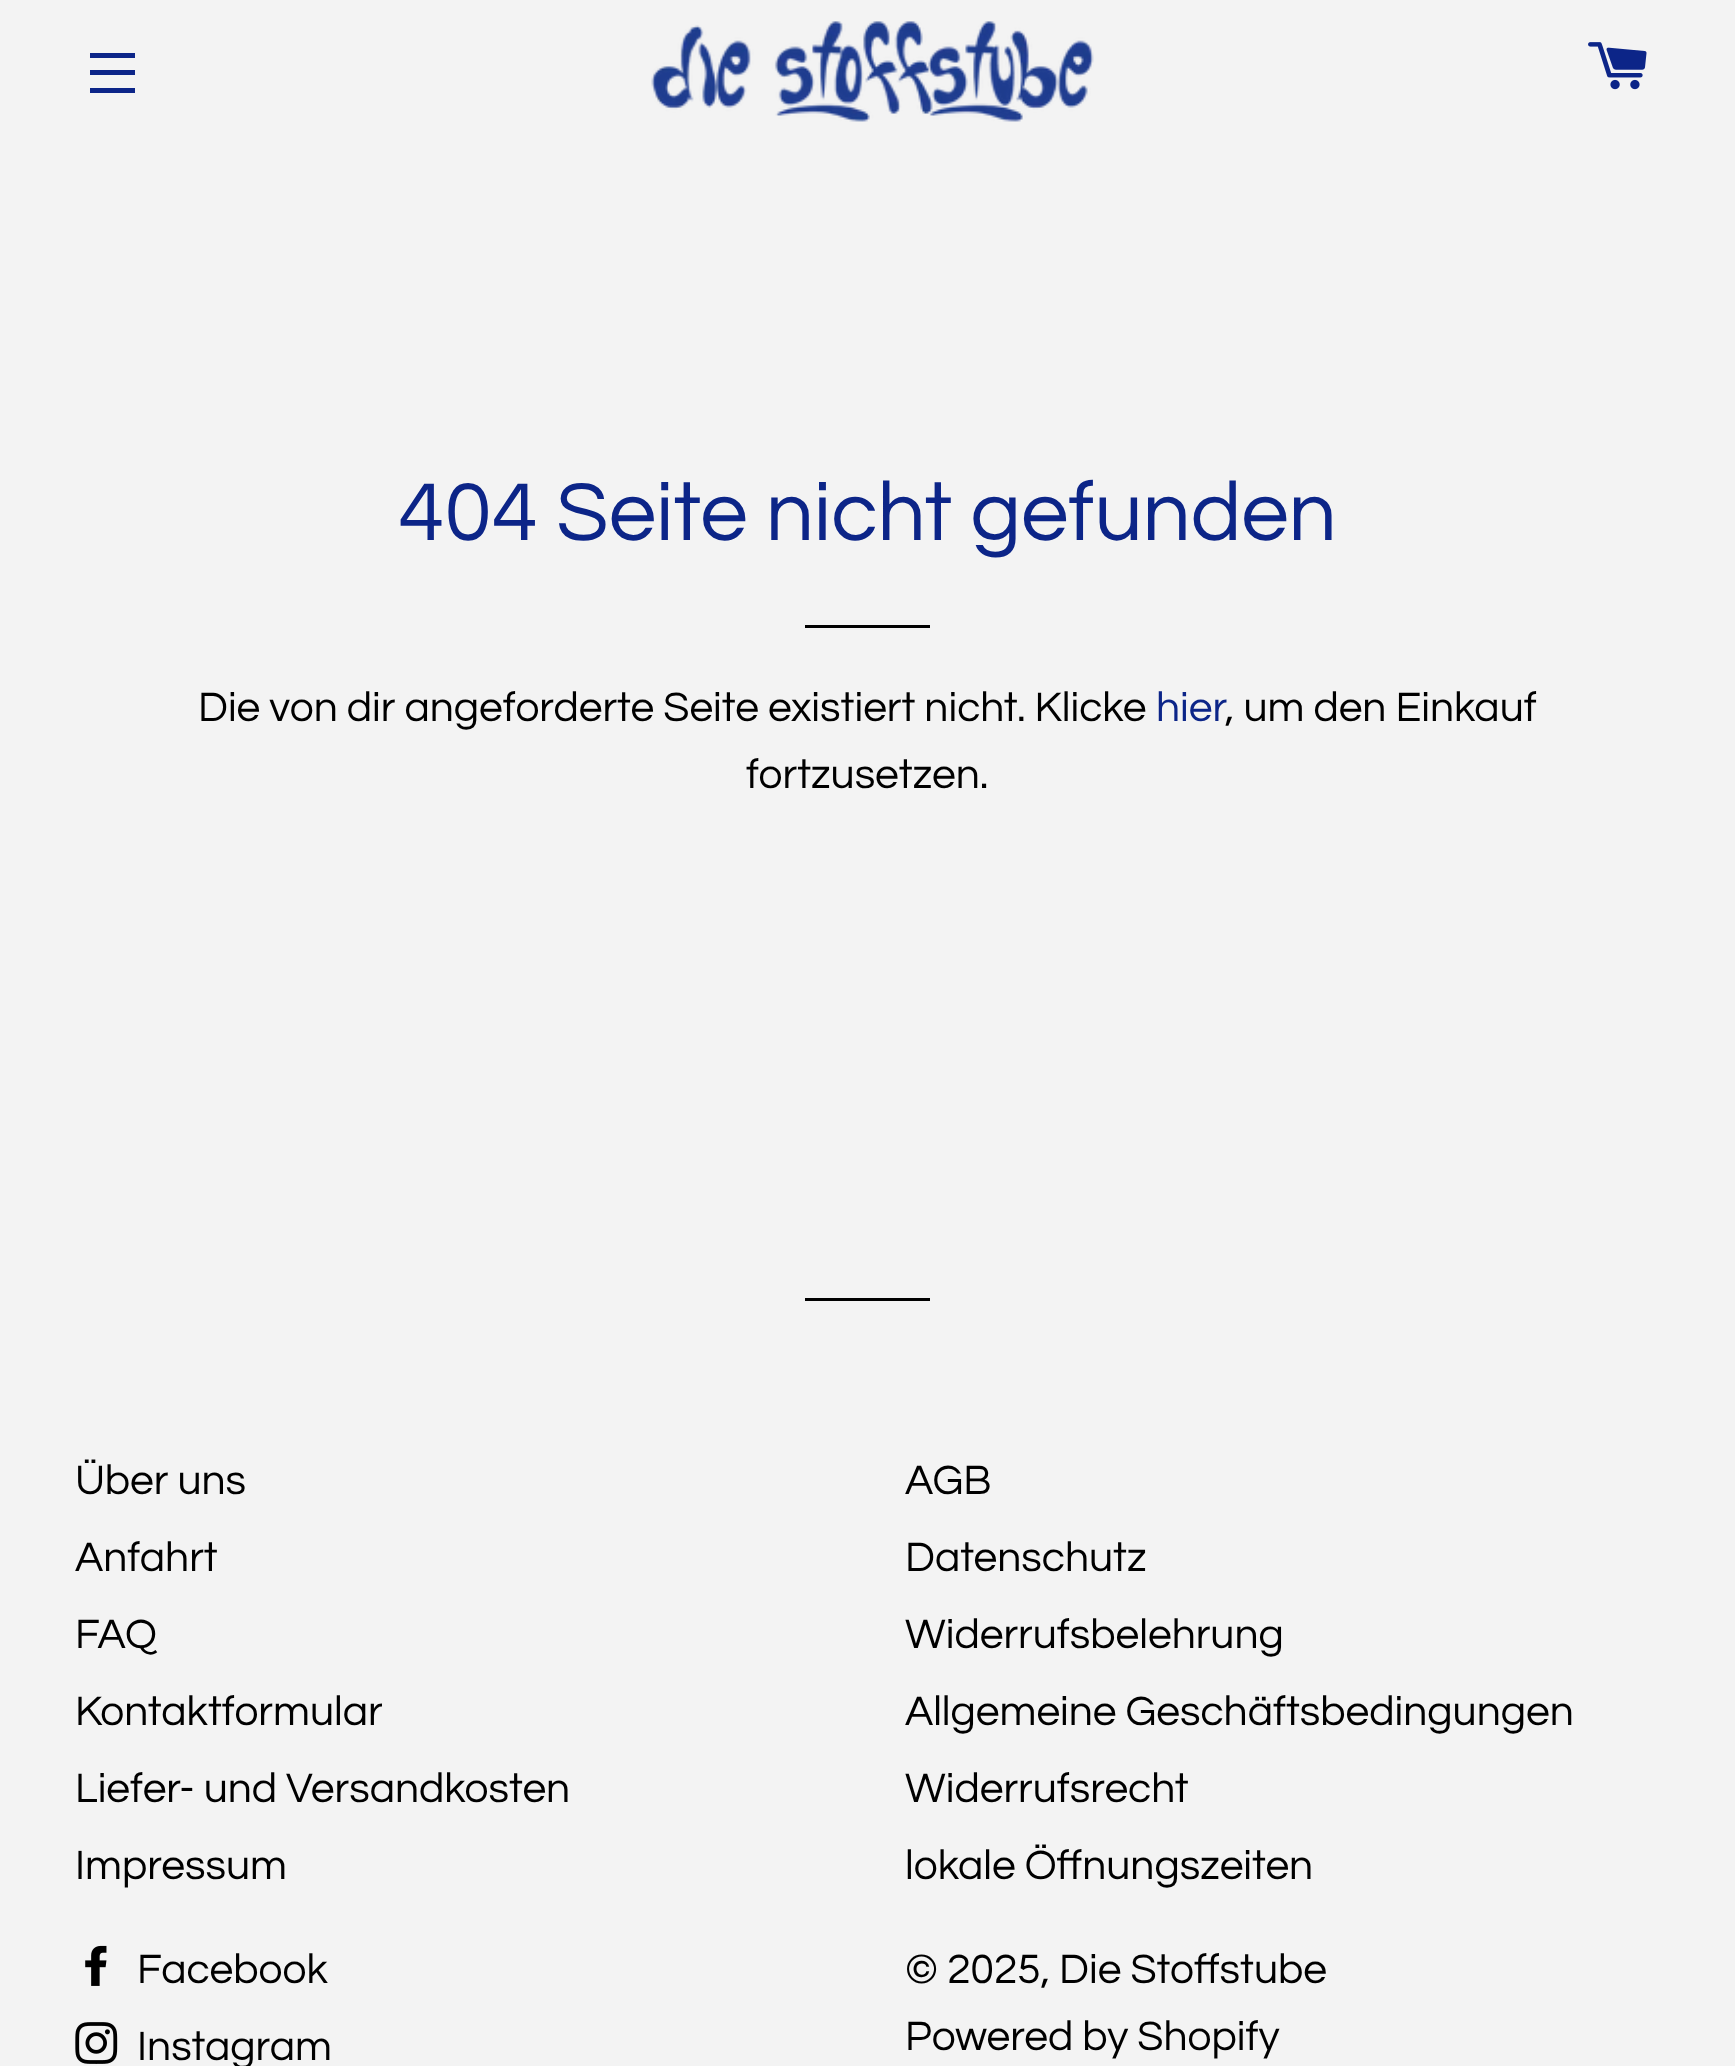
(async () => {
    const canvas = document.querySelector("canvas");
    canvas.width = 1735;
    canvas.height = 2066;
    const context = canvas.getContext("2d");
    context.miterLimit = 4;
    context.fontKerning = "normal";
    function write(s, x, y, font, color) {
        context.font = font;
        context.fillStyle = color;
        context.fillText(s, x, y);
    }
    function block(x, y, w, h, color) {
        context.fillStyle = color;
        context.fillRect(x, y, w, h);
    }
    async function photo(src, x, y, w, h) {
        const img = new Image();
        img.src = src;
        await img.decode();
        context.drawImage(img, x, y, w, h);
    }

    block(0, 0, 1735, 2066, "rgb(243, 243, 243)");
    block(90, 53, 45, 5, "rgb(12, 37, 136)");
    block(90, 70, 45, 5, "rgb(12, 37, 136)");
    block(90, 88, 45, 5, "rgb(12, 37, 136)");
    await photo("media/1.png", 651, 21, 443, 101);
    await photo("media/2.png", 1588, 42, 59, 48);
    write("404 Seite nicht gefunden", 398, 540, "85px Questrial", "rgb(12, 37, 136)");
    block(805, 625, 125, 3, "rgb(0, 0, 0)");
    write("Die von dir angeforderte Seite existiert nicht. Klicke", 198, 721, "42.5px Questrial", "rgb(0, 0, 0)");
    write("hier", 1156, 721, "42.5px Questrial", "rgb(12, 37, 136)");
    write(", um den Einkauf", 1225, 721, "42.5px Questrial", "rgb(0, 0, 0)");
    write("fortzusetzen.", 746, 788, "42.5px Questrial", "rgb(0, 0, 0)");
    block(805, 1298, 125, 3, "rgb(0, 0, 0)");
    write("Über uns", 75, 1494, "42.5px Questrial", "rgb(0, 0, 0)");
    write("Anfahrt", 75, 1571, "42.5px Questrial", "rgb(0, 0, 0)");
    write("FAQ", 75, 1648, "42.5px Questrial", "rgb(0, 0, 0)");
    write("Kontaktformular", 75, 1725, "42.5px Questrial", "rgb(0, 0, 0)");
    write("Liefer- und Versandkosten", 75, 1802, "42.5px Questrial", "rgb(0, 0, 0)");
    write("Impressum", 75, 1879, "42.5px Questrial", "rgb(0, 0, 0)");
    write("AGB", 905, 1494, "42.5px Questrial", "rgb(0, 0, 0)");
    write("Datenschutz", 905, 1571, "42.5px Questrial", "rgb(0, 0, 0)");
    write("Widerrufsbelehrung", 905, 1648, "42.5px Questrial", "rgb(0, 0, 0)");
    write("Allgemeine Geschäftsbedingungen", 905, 1725, "42.5px Questrial", "rgb(0, 0, 0)");
    write("Widerrufsrecht", 905, 1802, "42.5px Questrial", "rgb(0, 0, 0)");
    write("lokale Öffnungszeiten", 905, 1879, "42.5px Questrial", "rgb(0, 0, 0)");
    await photo("media/3.png", 85, 1945, 22, 41);
    write("Facebook", 137, 1983, "42.5px Questrial", "rgb(0, 0, 0)");
    await photo("media/4.png", 75, 2022, 43, 42);
    write("Instagram", 137, 2060, "42.5px Questrial", "rgb(0, 0, 0)");
    write("© 2025, Die Stoffstube", 905, 1983, "42.5px Questrial", "rgb(0, 0, 0)");
    write("Powered by Shopify", 905, 2050, "42.5px Questrial", "rgb(0, 0, 0)");
})();
